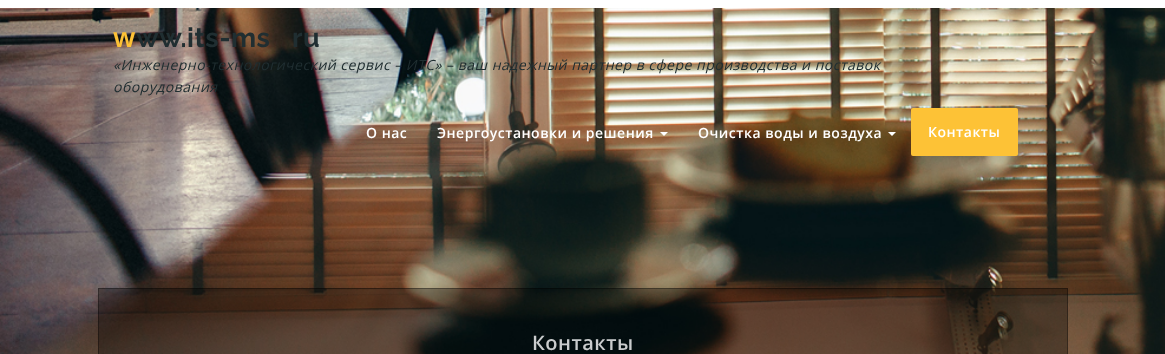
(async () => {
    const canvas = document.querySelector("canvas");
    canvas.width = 1165;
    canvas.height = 354;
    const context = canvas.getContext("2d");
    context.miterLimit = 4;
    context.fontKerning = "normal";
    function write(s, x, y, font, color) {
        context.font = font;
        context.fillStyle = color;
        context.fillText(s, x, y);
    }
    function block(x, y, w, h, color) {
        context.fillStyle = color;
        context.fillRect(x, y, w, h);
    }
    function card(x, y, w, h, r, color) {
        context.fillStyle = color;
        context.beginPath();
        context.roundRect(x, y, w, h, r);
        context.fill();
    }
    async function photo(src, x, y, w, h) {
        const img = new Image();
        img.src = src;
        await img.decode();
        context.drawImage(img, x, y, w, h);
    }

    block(0, 0, 1165, 354, "rgb(255, 255, 255)");
    await photo("media/1.png", 0, 8, 1165, 346);
    context.letterSpacing = "0.5px";
    write("w", 113, 47, "600 27px Noto Sans", "rgb(253, 194, 54)");
    write("ww.its-ms", 136, 47, "bold 27px Raleway", "rgb(32, 46, 49)");
    write("ru", 292, 47, "bold 27px Raleway", "rgb(32, 46, 49)");
    write("«Инженерно-технологический сервис – ИТС» – ваш надежный партнер в сфере производства и поставок", 113, 70, "italic 14px Open Sans", "rgb(32, 46, 49)");
    write("оборудования", 113, 92, "italic 14px Open Sans", "rgb(32, 46, 49)");
    write("О нас", 366, 138, "600 14px Open Sans", "rgb(255, 255, 255)");
    write("Энергоустановки и решения", 437, 138, "600 14px Open Sans", "rgb(255, 255, 255)");
    context.beginPath();
    context.moveTo(660, 132);
    context.lineTo(668, 132);
    context.lineTo(664, 136);
    context.closePath();
    context.fill();
    write("Очистка воды и воздуха", 698, 138, "600 14px Open Sans", "rgb(255, 255, 255)");
    context.beginPath();
    context.moveTo(888, 132);
    context.lineTo(896, 132);
    context.lineTo(892, 136);
    context.closePath();
    context.fill();
    card(911, 108, 107, 48, 2, "rgb(253, 194, 54)");
    write("Контакты", 928, 137, "600 14px Open Sans", "rgb(255, 255, 255)");
    block(98, 288, 970, 66, "rgba(0, 0, 0, 0.32)");
    context.strokeStyle = "rgba(0, 0, 0, 0.32)";
    context.strokeRect(98.5, 288.5, 969, 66);
    write("Контакты", 532, 350, "600 20px Open Sans", "rgb(202, 204, 205)");
})();
